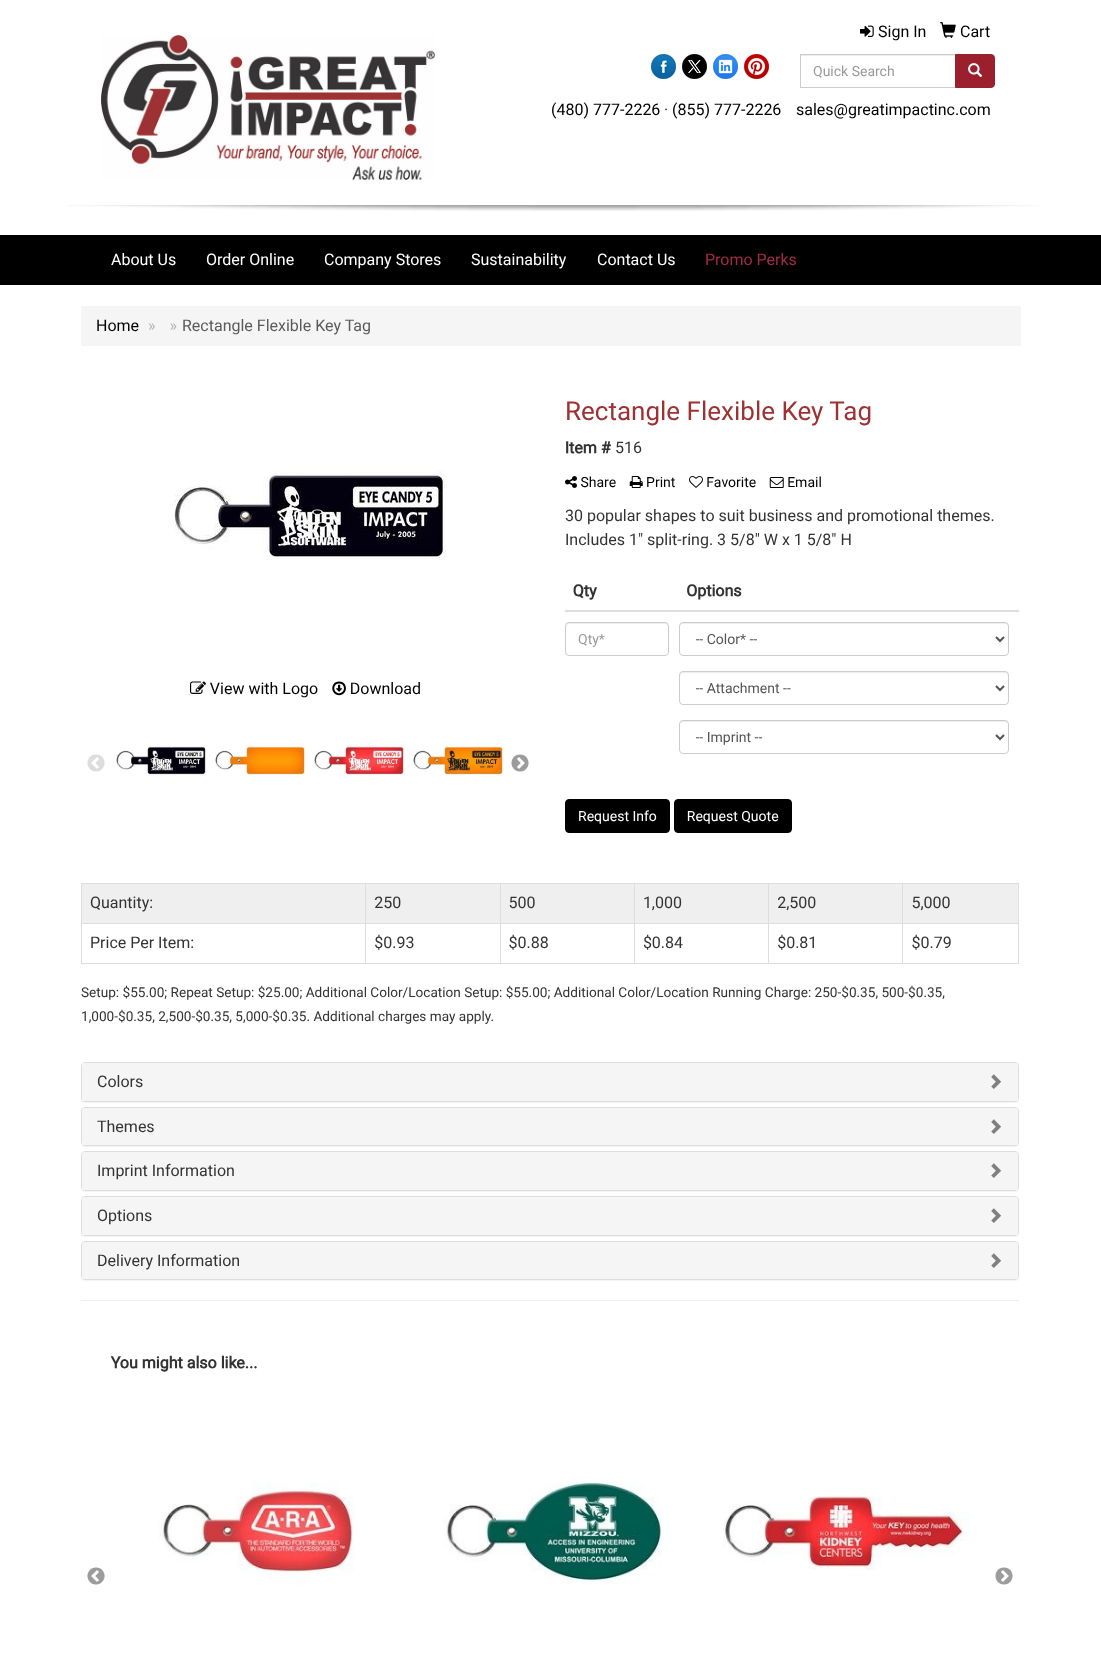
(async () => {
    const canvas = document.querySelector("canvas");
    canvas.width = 1101;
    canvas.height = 1674;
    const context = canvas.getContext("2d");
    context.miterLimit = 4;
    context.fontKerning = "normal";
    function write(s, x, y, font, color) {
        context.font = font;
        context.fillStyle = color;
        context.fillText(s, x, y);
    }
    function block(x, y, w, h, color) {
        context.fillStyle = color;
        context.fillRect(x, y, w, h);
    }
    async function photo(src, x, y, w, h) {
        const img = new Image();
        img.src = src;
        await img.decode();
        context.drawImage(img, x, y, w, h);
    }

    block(0, 0, 1101, 1674, "rgb(255, 255, 255)");
    await photo("media/1.png", 101, 35, 334, 145);
    await photo("media/2.png", 860, 25, 14, 12);
    write("Sign In", 878, 37, "16px Roboto", "rgb(0, 0, 0)");
    await photo("media/3.png", 940, 22, 16, 16);
    write("Cart", 960, 37, "16px Roboto", "rgb(0, 0, 0)");
    await photo("media/4.png", 651, 54, 25, 25);
    await photo("media/5.png", 682, 54, 25, 25);
    await photo("media/6.png", 713, 54, 25, 25);
    await photo("media/7.png", 744, 54, 25, 25);
    block(801, 55, 154, 1, "rgb(236, 236, 236)");
    context.strokeStyle = "rgb(204, 204, 204)";
    context.strokeRect(800.5, 54.5, 155, 33);
    write("Quick Search", 813, 76, "14px Roboto", "rgb(153, 153, 153)");
    context.fillStyle = "rgb(156, 31, 46)";
    context.beginPath();
    context.roundRect(955.5, 54.5, 39, 33, [0, 3.5, 3.5, 0]);
    context.fill();
    context.strokeStyle = "rgb(156, 31, 46)";
    context.stroke();
    await photo("media/8.png", 968, 63, 15, 14);
    write("(480) 777-2226", 551, 115, "16px Roboto", "rgb(0, 0, 0)");
    write("·", 664, 115, "16px Roboto", "rgb(51, 51, 51)");
    write("(855) 777-2226", 672, 115, "16px Roboto", "rgb(0, 0, 0)");
    write("sales@greatimpactinc.com", 796, 115, "16px Roboto", "rgb(0, 0, 0)");
    await photo("media/9.png", 68, 205, 972, 6);
    block(0, 235, 1101, 50, "rgb(0, 0, 0)");
    write("About Us", 111, 265, "16px Roboto", "rgb(255, 255, 255)");
    write("Order Online", 206, 265, "16px Roboto", "rgb(255, 255, 255)");
    write("Company Stores", 324, 265, "16px Roboto", "rgb(255, 255, 255)");
    write("Sustainability", 471, 265, "16px Roboto", "rgb(255, 255, 255)");
    write("Contact Us", 597, 265, "16px Roboto", "rgb(255, 255, 255)");
    write("Promo Perks", 705, 265, "16px Roboto", "rgb(165, 43, 67)");
    await photo("media/10.png", 81, 306, 940, 1279);
})();
